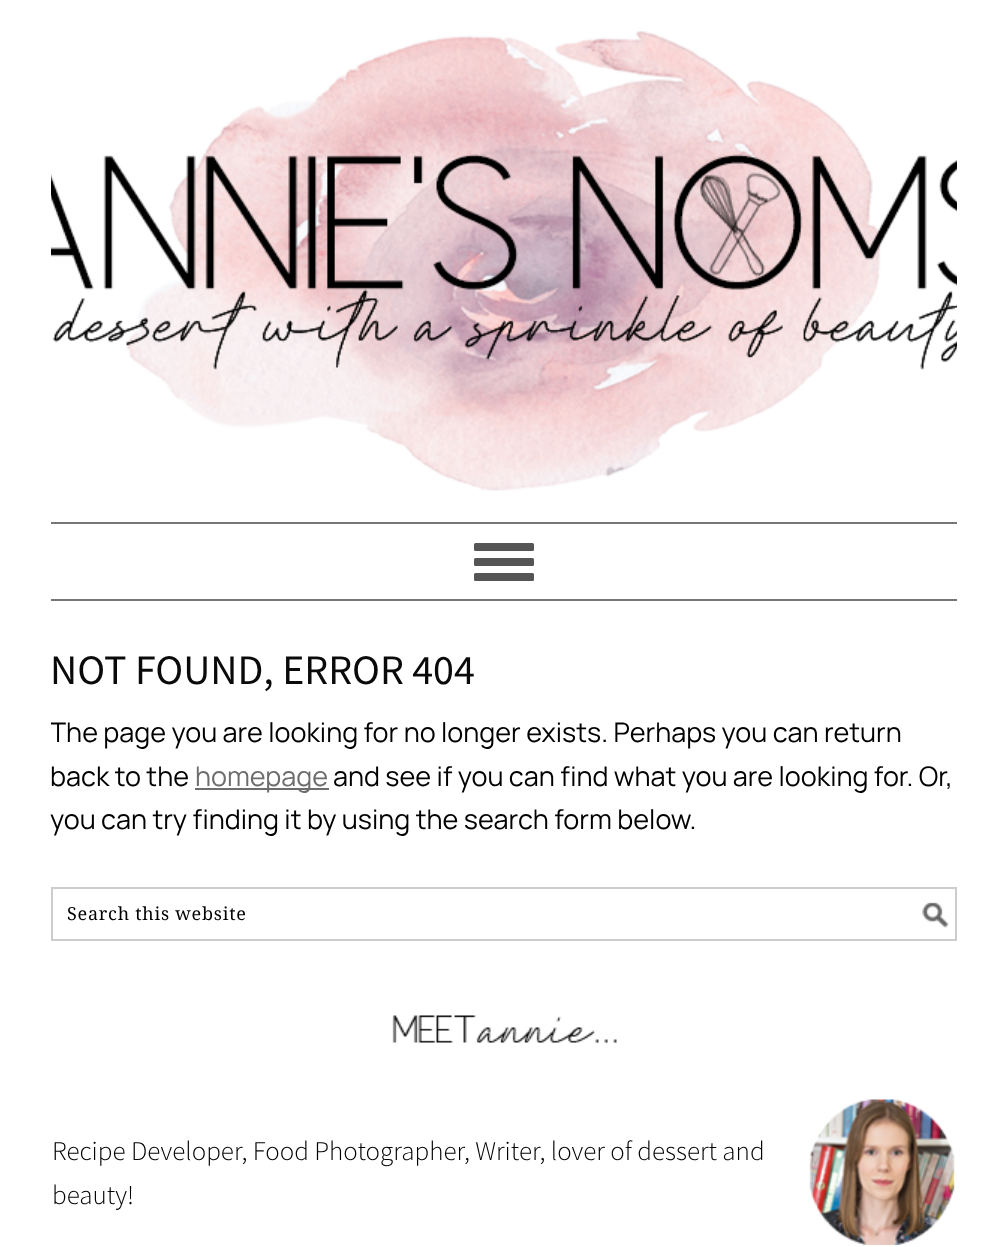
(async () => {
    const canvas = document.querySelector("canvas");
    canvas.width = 1008;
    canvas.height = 1247;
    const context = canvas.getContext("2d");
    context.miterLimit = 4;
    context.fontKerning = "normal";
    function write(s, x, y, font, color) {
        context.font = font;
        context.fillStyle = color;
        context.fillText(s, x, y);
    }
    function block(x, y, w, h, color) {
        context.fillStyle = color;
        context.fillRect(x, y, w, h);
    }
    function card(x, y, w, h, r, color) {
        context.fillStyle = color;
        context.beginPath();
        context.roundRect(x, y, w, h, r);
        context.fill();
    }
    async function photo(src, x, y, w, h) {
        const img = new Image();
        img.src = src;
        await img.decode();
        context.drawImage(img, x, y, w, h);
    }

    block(0, 0, 1008, 1247, "rgb(255, 255, 255)");
    await photo("media/1.png", 51, 31, 906, 460);
    block(51, 522, 906, 2, "rgb(119, 119, 119)");
    block(51, 599, 906, 2, "rgb(119, 119, 119)");
    card(474, 558, 60, 8, 1.5, "rgb(85, 85, 85)");
    card(474, 543, 60, 8, 1.5, "rgb(85, 85, 85)");
    card(474, 573, 60, 8, 1.5, "rgb(85, 85, 85)");
    write("NOT FOUND, ERROR 404", 50, 684, "42px Source Sans Pro", "rgb(10, 10, 10)");
    context.save();
    context.beginPath();
    context.rect(51, 630, 906, 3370);
    context.clip();
    write("The page you are looking for no longer exists. Perhaps you can return", 50, 742, "27px Manrope", "rgb(0, 0, 0)");
    context.restore();
    write("back to the", 50, 786, "27px Manrope", "rgb(0, 0, 0)");
    block(195, 788, 134, 2, "rgb(109, 109, 109)");
    write("homepage", 195, 786, "27px Manrope", "rgb(109, 109, 109)");
    write("and see if you can find what you are looking for. Or,", 333, 786, "27px Manrope", "rgb(0, 0, 0)");
    write("you can try finding it by using the search form below.", 50, 829, "27px Manrope", "rgb(0, 0, 0)");
    await photo("media/2.png", 922, 902, 27, 26);
    context.strokeStyle = "rgb(204, 204, 204)";
    context.lineWidth = 2;
    context.strokeRect(52, 888, 904, 52);
    context.letterSpacing = "0.75px";
    write("Search this website", 67, 920, "18px Droid Serif", "rgb(0, 0, 0)");
    await photo("media/3.png", 392, 1015, 225, 29);
    context.letterSpacing = "0px";
    write("Recipe Developer, Food Photographer, Writer, lover of dessert and", 52, 1160, "300 27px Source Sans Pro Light", "rgb(0, 0, 0)");
    write("beauty!", 52, 1204, "300 27px Source Sans Pro Light", "rgb(0, 0, 0)");
    await photo("media/4.png", 809, 1099, 146, 146);
})();
